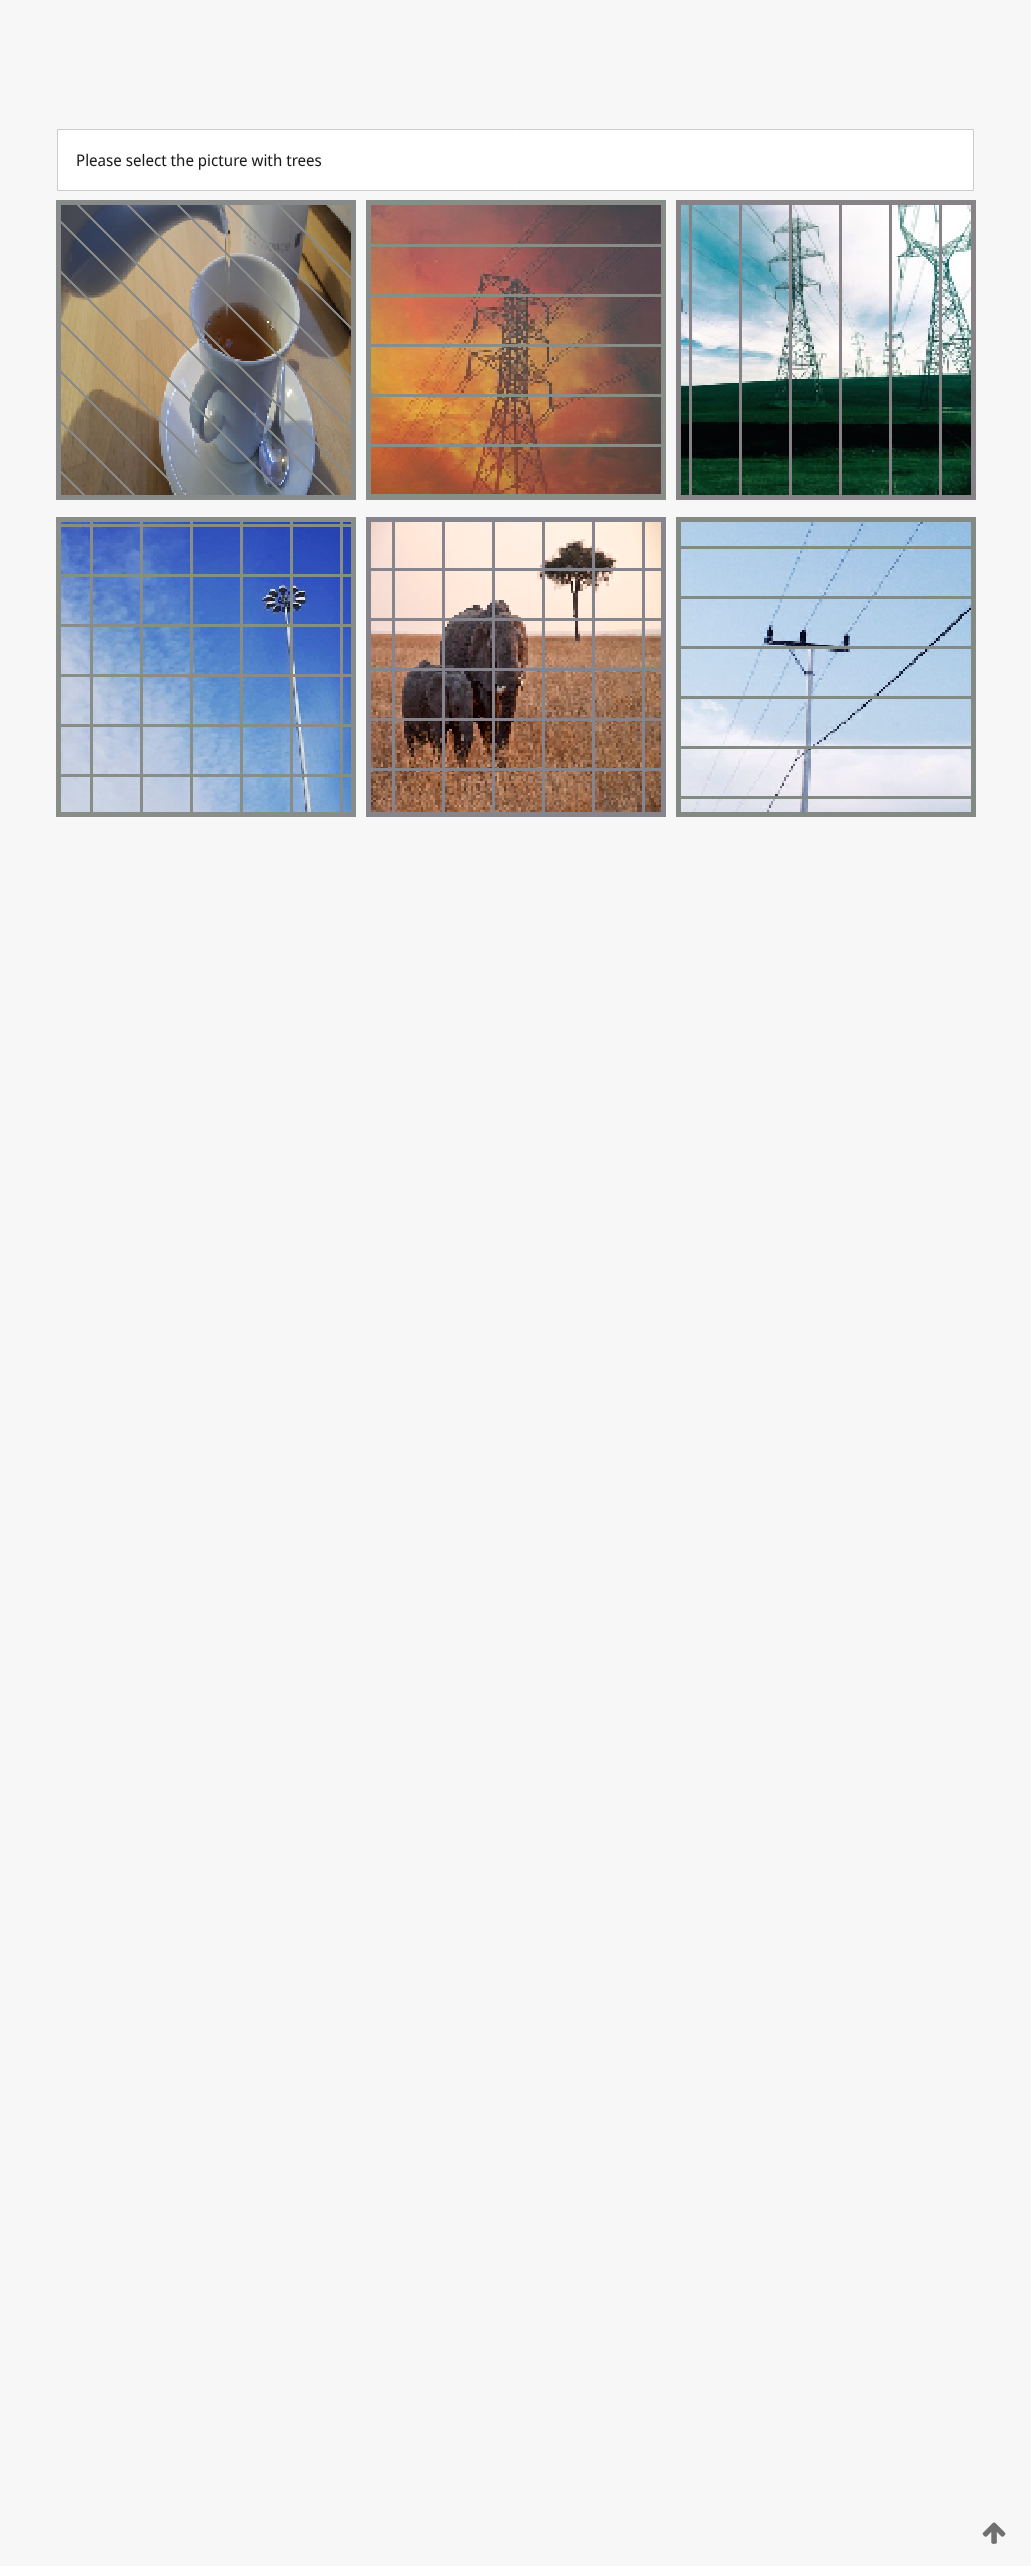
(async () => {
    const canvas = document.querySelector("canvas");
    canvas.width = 1031;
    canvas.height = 2566;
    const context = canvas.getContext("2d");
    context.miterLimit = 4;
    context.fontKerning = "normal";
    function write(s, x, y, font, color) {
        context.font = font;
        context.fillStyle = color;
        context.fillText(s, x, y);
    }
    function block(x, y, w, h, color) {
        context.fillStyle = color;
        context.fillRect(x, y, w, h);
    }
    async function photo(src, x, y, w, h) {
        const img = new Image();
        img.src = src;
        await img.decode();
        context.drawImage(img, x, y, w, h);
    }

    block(0, 0, 1031, 2566, "rgb(247, 247, 247)");
    context.fillStyle = "rgb(255, 255, 255)";
    context.beginPath();
    context.rect(57.5, 129.5, 916, 61);
    context.fill();
    context.strokeStyle = "rgb(204, 204, 204)";
    context.stroke();
    write("Please select the picture with trees", 76, 166, "16px Noto Sans Display", "rgb(26, 26, 26)");
    await photo("media/1.png", 56, 200, 300, 300);
    await photo("media/2.png", 366, 200, 300, 300);
    await photo("media/3.png", 676, 200, 300, 300);
    await photo("media/4.png", 56, 517, 300, 300);
    await photo("media/5.png", 366, 517, 300, 300);
    await photo("media/6.png", 676, 517, 300, 300);
    await photo("media/7.png", 982, 2522, 24, 22);
})();
